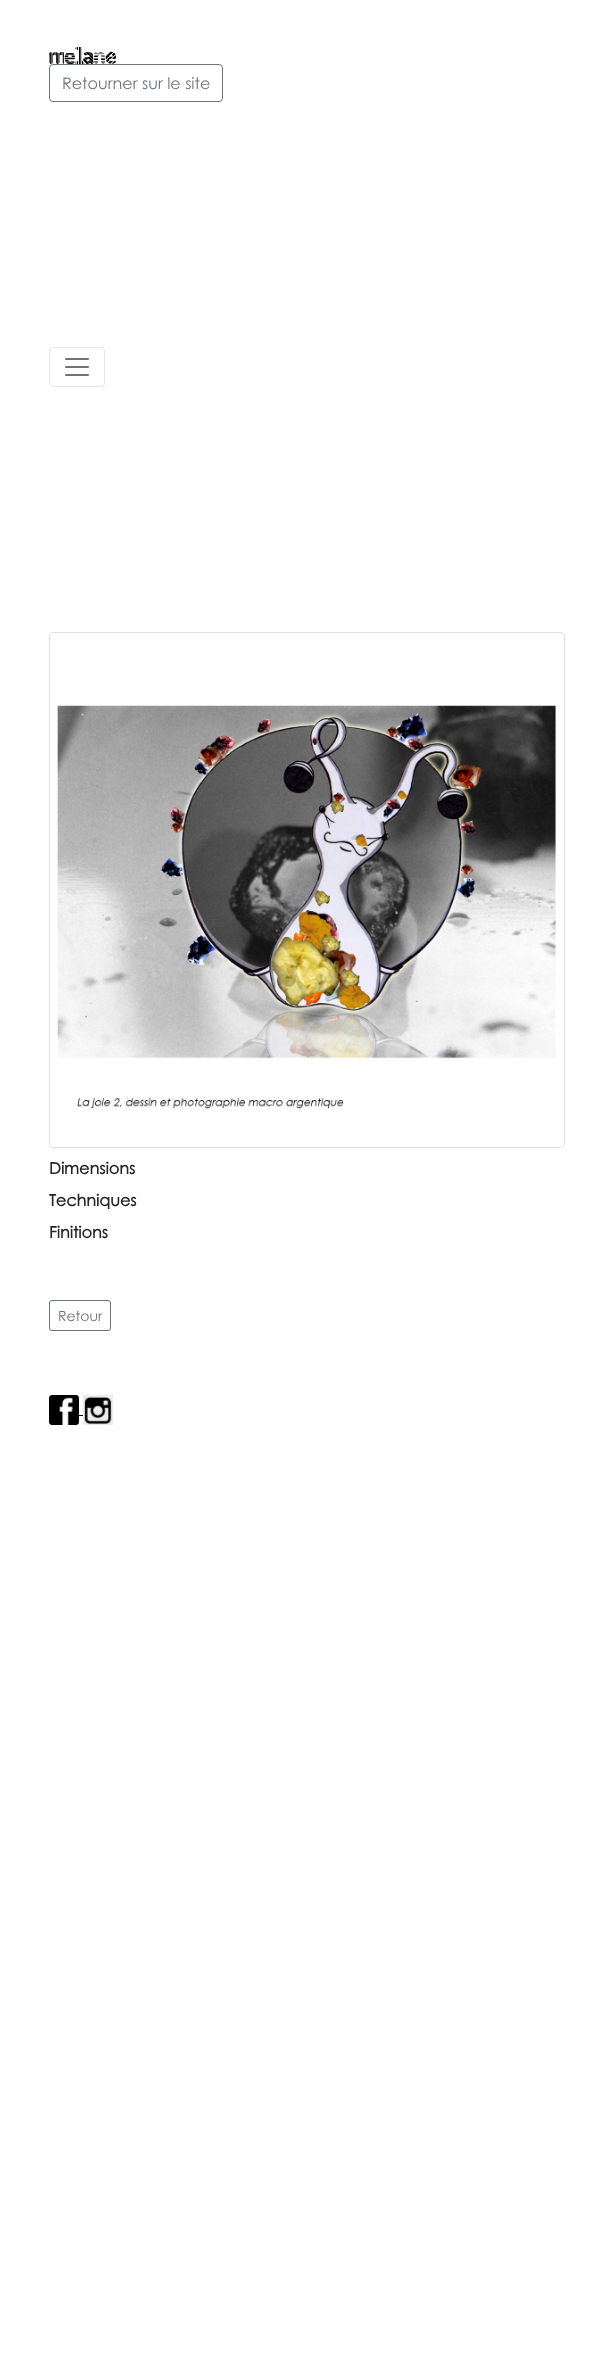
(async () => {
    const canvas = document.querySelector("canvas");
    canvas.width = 613;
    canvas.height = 2367;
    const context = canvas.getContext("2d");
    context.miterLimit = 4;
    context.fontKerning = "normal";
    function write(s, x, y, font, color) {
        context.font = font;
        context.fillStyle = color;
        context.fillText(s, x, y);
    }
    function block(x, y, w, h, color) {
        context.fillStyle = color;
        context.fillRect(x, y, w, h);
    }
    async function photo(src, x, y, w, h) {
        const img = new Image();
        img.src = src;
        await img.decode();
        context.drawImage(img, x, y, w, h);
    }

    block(0, 0, 613, 2367, "rgb(255, 255, 255)");
    await photo("media/1.png", 49, 47, 67, 17);
    context.beginPath();
    context.roundRect(49.5, 64.5, 173, 37, 3.5);
    context.strokeStyle = "rgb(108, 117, 125)";
    context.stroke();
    write("Retourner sur le site", 62, 89, "16px Century Gothic", "rgb(108, 117, 125)");
    context.beginPath();
    context.roundRect(49.5, 347.5, 55, 39, 3.5);
    context.strokeStyle = "rgb(230, 230, 230)";
    context.stroke();
    await photo("media/2.png", 65, 358, 24, 18);
    context.beginPath();
    context.roundRect(49.5, 632.5, 515, 515, 3.5);
    context.strokeStyle = "rgb(222, 226, 230)";
    context.stroke();
    await photo("media/3.png", 57, 705, 499, 404);
    write("Dimensions", 49, 1174, "bold 16px Century Gothic", "rgb(33, 37, 41)");
    write("Techniques", 49, 1206, "bold 16px Century Gothic", "rgb(33, 37, 41)");
    write("Finitions", 49, 1238, "bold 16px Century Gothic", "rgb(33, 37, 41)");
    context.beginPath();
    context.roundRect(49.5, 1300.5, 61, 30, 2.5);
    context.strokeStyle = "rgb(108, 117, 125)";
    context.stroke();
    write("Retour", 58, 1321, "14px Century Gothic", "rgb(108, 117, 125)");
    await photo("media/4.png", 49, 1395, 30, 30);
    block(79, 1415, 4, 1, "rgb(0, 0, 0)");
    await photo("media/5.png", 83, 1395, 30, 30);
})();
